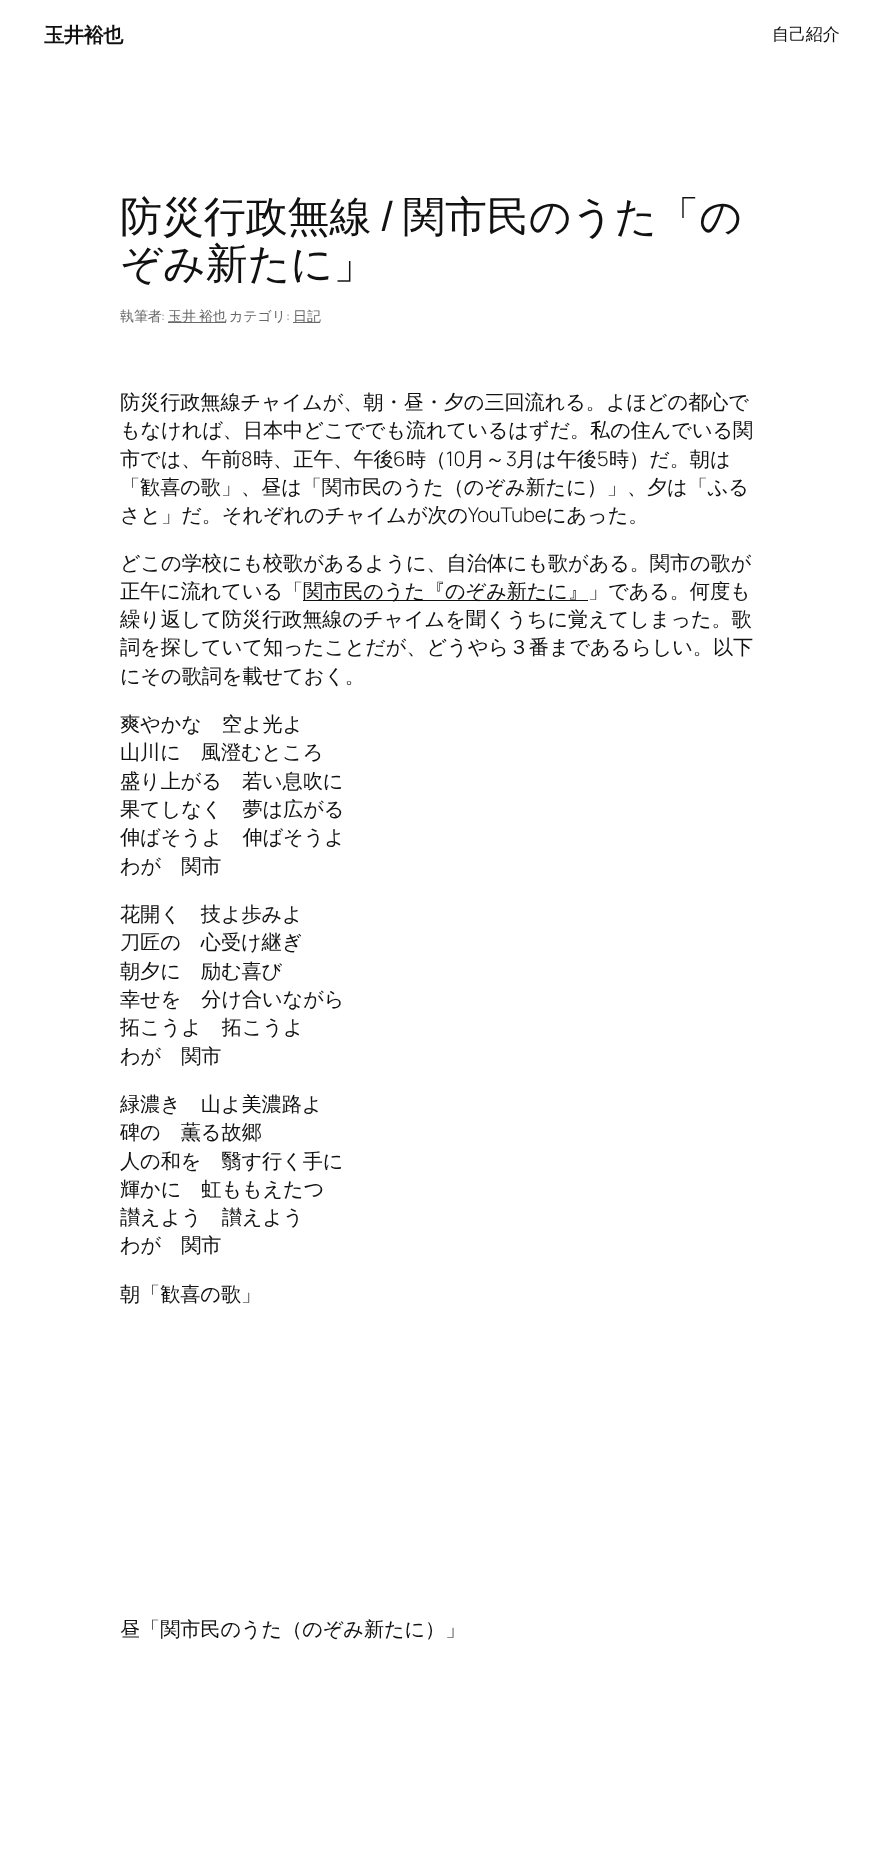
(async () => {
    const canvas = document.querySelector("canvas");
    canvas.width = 884;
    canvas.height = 1850;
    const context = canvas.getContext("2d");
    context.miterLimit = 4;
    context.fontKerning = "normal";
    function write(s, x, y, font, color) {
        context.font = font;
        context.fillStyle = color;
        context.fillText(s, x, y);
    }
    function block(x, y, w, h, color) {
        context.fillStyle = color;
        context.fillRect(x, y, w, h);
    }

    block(0, 0, 884, 1850, "rgb(255, 255, 255)");
    context.letterSpacing = "-0.5px";
    write("玉井裕也", 44, 42, "bold 20.2px WenQuanYi Zen Hei", "rgb(17, 17, 17)");
    context.letterSpacing = "-0.1px";
    write("自己紹介", 772, 40, "500 17px WenQuanYi Zen Hei", "rgb(17, 17, 17)");
    write("防災行政無線", 120, 231, "500 42px WenQuanYi Zen Hei", "rgb(17, 17, 17)");
    write("/", 379, 231, "42px Manrope", "rgb(17, 17, 17)");
    write("関市民のうた「の", 403, 231, "500 42px WenQuanYi Zen Hei", "rgb(17, 17, 17)");
    write("ぞみ新たに」", 120, 278, "500 42px WenQuanYi Zen Hei", "rgb(17, 17, 17)");
    write("執筆者", 120, 321, "500 14px WenQuanYi Zen Hei", "rgb(104, 104, 104)");
    write(":", 161, 321, "300 14px Manrope", "rgb(104, 104, 104)");
    block(168, 322, 58, 1, "rgb(104, 104, 104)");
    context.wordSpacing = "-1px";
    write("玉井 裕也", 168, 321, "500 14px WenQuanYi Zen Hei", "rgb(104, 104, 104)");
    context.wordSpacing = "0px";
    write("カテゴリ", 229, 321, "500 14px WenQuanYi Zen Hei", "rgb(104, 104, 104)");
    write(":", 286, 321, "300 14px Manrope", "rgb(104, 104, 104)");
    block(293, 322, 27, 1, "rgb(104, 104, 104)");
    write("日記", 293, 321, "500 14px WenQuanYi Zen Hei", "rgb(104, 104, 104)");
    write("防災行政無線チャイムが、朝・昼・夕の三回流れる。よほどの都心で", 120, 409, "500 20.2px WenQuanYi Zen Hei", "rgb(17, 17, 17)");
    write("もなければ、日本中どこででも流れているはずだ。私の住んでいる関", 120, 437, "500 20.2px WenQuanYi Zen Hei", "rgb(17, 17, 17)");
    write("市では、午前", 120, 466, "500 20.2px WenQuanYi Zen Hei", "rgb(17, 17, 17)");
    write("8", 241, 466, "300 20.2px Manrope", "rgb(17, 17, 17)");
    write("時、正午、午後", 253, 466, "500 20.2px WenQuanYi Zen Hei", "rgb(17, 17, 17)");
    write("6", 393, 466, "300 20.2px Manrope", "rgb(17, 17, 17)");
    write("時（", 406, 466, "500 20.2px WenQuanYi Zen Hei", "rgb(17, 17, 17)");
    write("10", 446, 466, "300 20.2px Manrope", "rgb(17, 17, 17)");
    write("月～", 465, 466, "500 20.2px WenQuanYi Zen Hei", "rgb(17, 17, 17)");
    write("3", 506, 466, "300 20.2px Manrope", "rgb(17, 17, 17)");
    write("月は午後", 516, 466, "500 20.2px WenQuanYi Zen Hei", "rgb(17, 17, 17)");
    write("5", 597, 466, "300 20.2px Manrope", "rgb(17, 17, 17)");
    write("時）だ。朝は", 609, 466, "500 20.2px WenQuanYi Zen Hei", "rgb(17, 17, 17)");
    write("「歓喜の歌」、昼は「関市民のうた（のぞみ新たに）」、夕は「ふる", 120, 494, "500 20.2px WenQuanYi Zen Hei", "rgb(17, 17, 17)");
    write("さと」だ。それぞれのチャイムが次の", 120, 522, "500 20.2px WenQuanYi Zen Hei", "rgb(17, 17, 17)");
    write("YouTube", 468, 522, "300 20.2px Manrope", "rgb(17, 17, 17)");
    write("にあった。", 546, 522, "500 20.2px WenQuanYi Zen Hei", "rgb(17, 17, 17)");
    write("どこの学校にも校歌があるように、自治体にも歌がある。関市の歌が", 120, 570, "500 20.2px WenQuanYi Zen Hei", "rgb(17, 17, 17)");
    write("正午に流れている「", 120, 598, "500 20.2px WenQuanYi Zen Hei", "rgb(17, 17, 17)");
    block(303, 600, 285, 1, "rgb(17, 17, 17)");
    write("関市民のうた『のぞみ新たに』」である。何度も", 303, 598, "500 20.2px WenQuanYi Zen Hei", "rgb(17, 17, 17)");
    write("繰り返して防災行政無線のチャイムを聞くうちに覚えてしまった。歌", 120, 626, "500 20.2px WenQuanYi Zen Hei", "rgb(17, 17, 17)");
    write("詞を探していて知ったことだが、どうやら３番まであるらしい。以下", 120, 654, "500 20.2px WenQuanYi Zen Hei", "rgb(17, 17, 17)");
    write("にその歌詞を載せておく。", 120, 683, "500 20.2px WenQuanYi Zen Hei", "rgb(17, 17, 17)");
    write("爽やかな　空よ光よ", 120, 731, "500 20.2px WenQuanYi Zen Hei", "rgb(17, 17, 17)");
    write("山川に　風澄むところ", 120, 759, "500 20.2px WenQuanYi Zen Hei", "rgb(17, 17, 17)");
    write("盛り上がる　若い息吹に", 120, 788, "500 20.2px WenQuanYi Zen Hei", "rgb(17, 17, 17)");
    write("果てしなく　夢は広がる", 120, 816, "500 20.2px WenQuanYi Zen Hei", "rgb(17, 17, 17)");
    write("伸ばそうよ　伸ばそうよ", 120, 844, "500 20.2px WenQuanYi Zen Hei", "rgb(17, 17, 17)");
    write("わが　関市", 120, 873, "500 20.2px WenQuanYi Zen Hei", "rgb(17, 17, 17)");
    write("花開く　技よ歩みよ", 120, 921, "500 20.2px WenQuanYi Zen Hei", "rgb(17, 17, 17)");
    write("刀匠の　心受け継ぎ", 120, 949, "500 20.2px WenQuanYi Zen Hei", "rgb(17, 17, 17)");
    write("朝夕に　励む喜び", 120, 978, "500 20.2px WenQuanYi Zen Hei", "rgb(17, 17, 17)");
    write("幸せを　分け合いながら", 120, 1006, "500 20.2px WenQuanYi Zen Hei", "rgb(17, 17, 17)");
    write("拓こうよ　拓こうよ", 120, 1034, "500 20.2px WenQuanYi Zen Hei", "rgb(17, 17, 17)");
    write("わが　関市", 120, 1063, "500 20.2px WenQuanYi Zen Hei", "rgb(17, 17, 17)");
    write("緑濃き　山よ美濃路よ", 120, 1111, "500 20.2px WenQuanYi Zen Hei", "rgb(17, 17, 17)");
    write("碑の　薫る故郷", 120, 1139, "500 20.2px WenQuanYi Zen Hei", "rgb(17, 17, 17)");
    write("人の和を　翳す行く手に", 120, 1168, "500 20.2px WenQuanYi Zen Hei", "rgb(17, 17, 17)");
    write("輝かに　虹ももえたつ", 120, 1196, "500 20.2px WenQuanYi Zen Hei", "rgb(17, 17, 17)");
    write("讃えよう　讃えよう", 120, 1224, "500 20.2px WenQuanYi Zen Hei", "rgb(17, 17, 17)");
    write("わが　関市", 120, 1252, "500 20.2px WenQuanYi Zen Hei", "rgb(17, 17, 17)");
    write("朝「歓喜の歌」", 120, 1301, "500 20.2px WenQuanYi Zen Hei", "rgb(17, 17, 17)");
    write("昼「関市民のうた（のぞみ新たに）」", 120, 1636, "500 20.2px WenQuanYi Zen Hei", "rgb(17, 17, 17)");
})();
